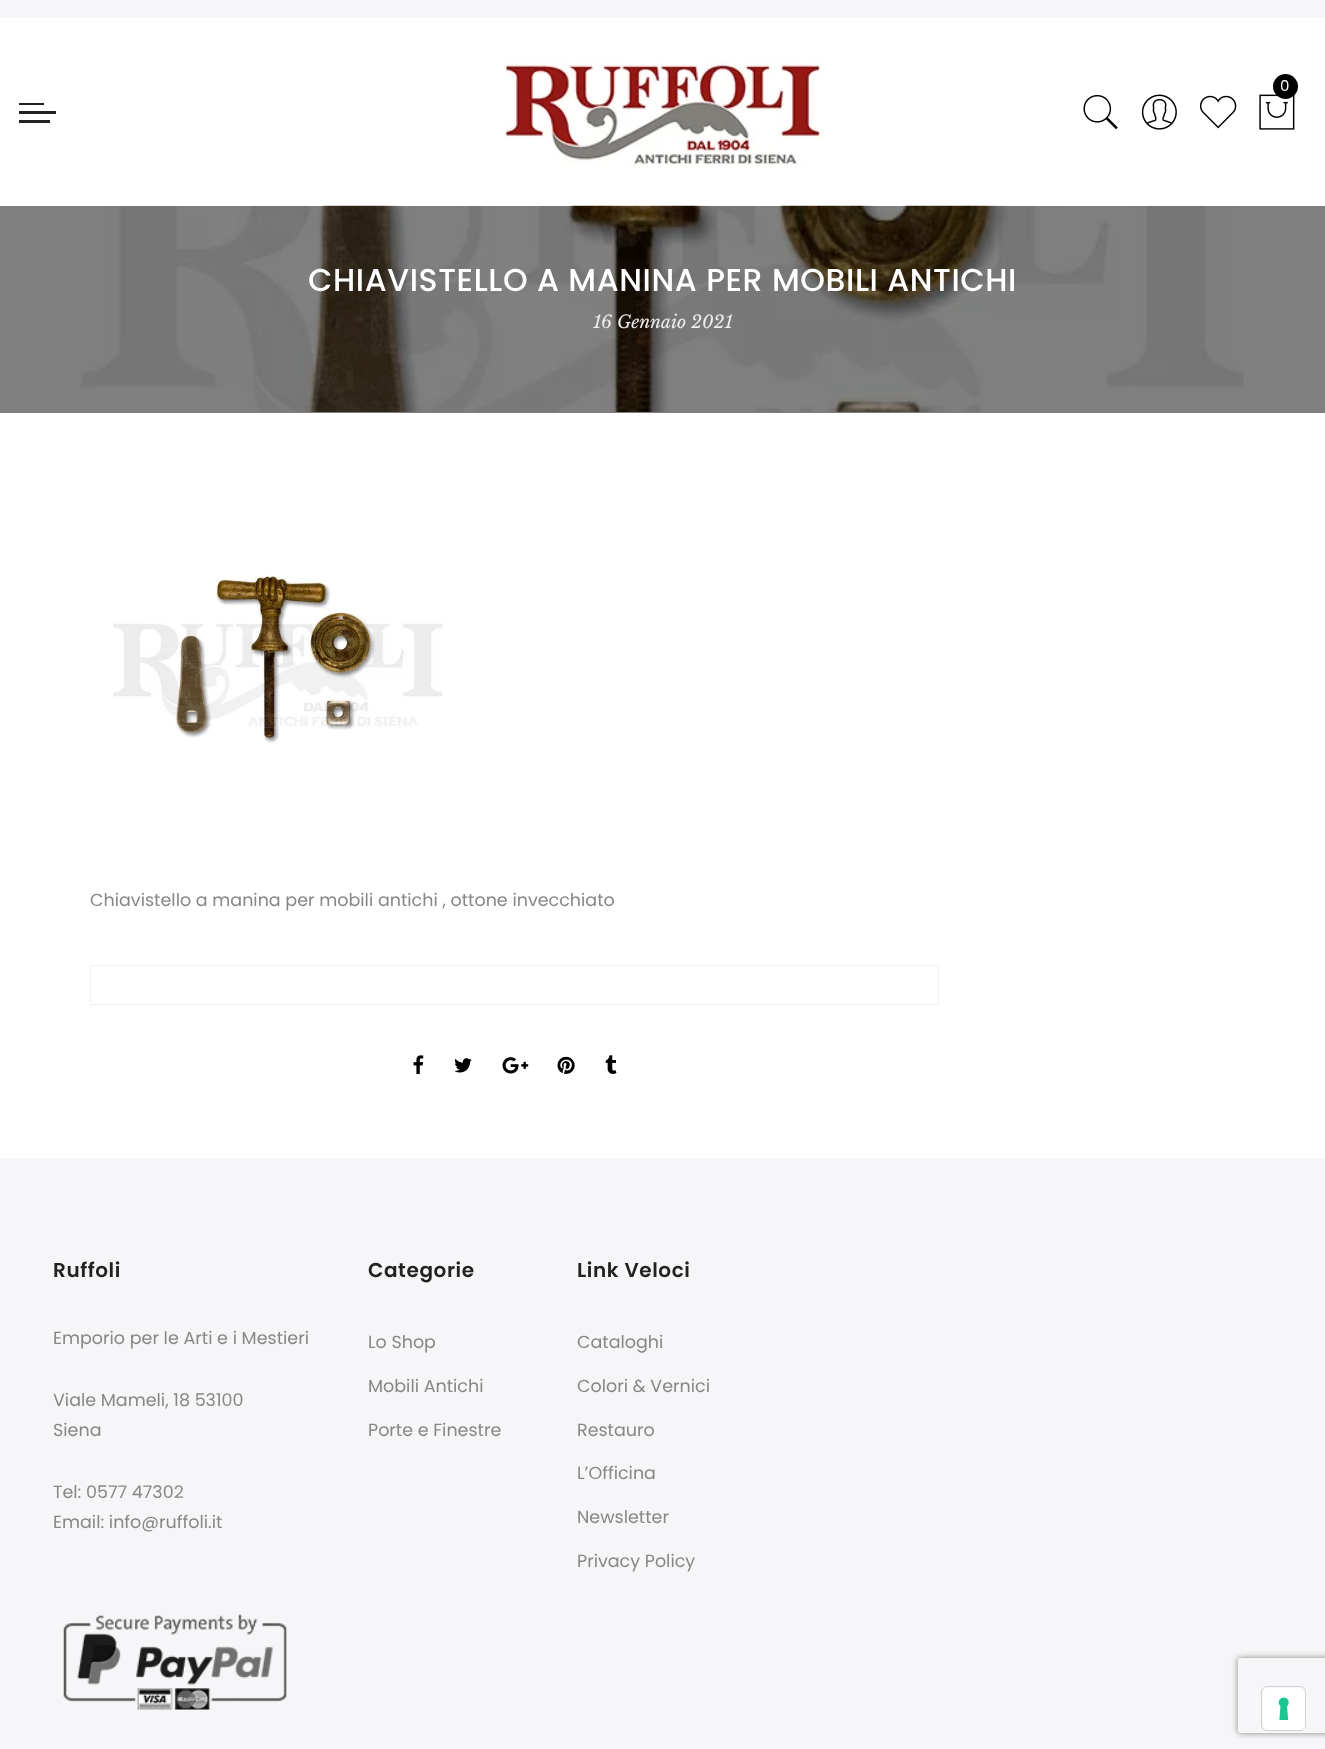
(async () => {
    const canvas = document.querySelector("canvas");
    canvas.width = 1325;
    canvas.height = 1749;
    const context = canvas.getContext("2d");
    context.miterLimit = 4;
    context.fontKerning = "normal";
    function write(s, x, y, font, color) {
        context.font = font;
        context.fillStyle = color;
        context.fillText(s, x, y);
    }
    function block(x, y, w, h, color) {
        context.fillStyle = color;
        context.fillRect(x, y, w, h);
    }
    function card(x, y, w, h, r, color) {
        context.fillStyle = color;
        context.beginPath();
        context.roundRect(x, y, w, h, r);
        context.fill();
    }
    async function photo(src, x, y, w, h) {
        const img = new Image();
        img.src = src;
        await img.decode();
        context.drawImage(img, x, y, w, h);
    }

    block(0, 0, 1325, 1749, "rgb(255, 255, 255)");
    block(0, 206, 1325, 207, "rgb(128, 128, 128)");
    block(0, 0, 1325, 18, "rgb(246, 246, 248)");
    await photo("media/1.png", 504, 60, 321, 108);
    await photo("media/2.png", 1259, 94, 36, 36);
    context.fillStyle = "rgb(0, 0, 0)";
    context.beginPath();
    context.arc(1285.5, 86.5, 12.5, 0, Math.PI * 2);
    context.fill();
    write("0", 1280, 91, "15px Poppins", "rgb(255, 255, 255)");
    await photo("media/3.png", 1083, 94, 35, 36);
    await photo("media/4.png", 1141, 94, 36, 36);
    await photo("media/5.png", 1199, 95, 38, 34);
    block(19, 103, 25, 2, "rgb(34, 34, 34)");
    block(19, 111, 37, 3, "rgb(34, 34, 34)");
    block(19, 120, 31, 3, "rgb(34, 34, 34)");
    await photo("media/6.png", 80, 205, 1164, 207);
    context.letterSpacing = "0.6px";
    write("CHIAVISTELLO A MANINA PER MOBILI ANTICHI", 308, 291, "500 31.5px Poppins", "rgb(255, 255, 255)");
    context.letterSpacing = "0px";
    write("16 Gennaio 2021", 593, 328, "italic 17.5px Libre Baskerville", "rgb(237, 237, 237)");
    await photo("media/7.png", 113, 574, 330, 170);
    write("Chiavistello a manina per mobili antichi , ottone invecchiato", 90, 906, "17.5px Poppins", "rgb(135, 135, 135)");
    context.strokeStyle = "rgb(241, 241, 241)";
    context.strokeRect(90.5, 965.5, 848, 39);
    await photo("media/8.png", 413, 1055, 11, 19);
    await photo("media/9.png", 454, 1058, 18, 15);
    await photo("media/10.png", 502, 1057, 27, 17);
    await photo("media/11.png", 557, 1056, 18, 18);
    await photo("media/12.png", 605, 1055, 12, 19);
    block(0, 1158, 1325, 591, "rgb(246, 246, 248)");
    context.letterSpacing = "0.6px";
    write("Ruffoli", 53, 1277, "600 20px Poppins", "rgb(34, 34, 34)");
    context.letterSpacing = "0px";
    write("Emporio per le Arti e i Mestieri", 53, 1344, "17.5px Poppins", "rgb(135, 135, 135)");
    write("Viale Mameli, 18 53100", 53, 1406, "17.5px Poppins", "rgb(135, 135, 135)");
    write("Siena", 53, 1436, "17.5px Poppins", "rgb(135, 135, 135)");
    write("Tel: 0577 47302", 53, 1498, "17.5px Poppins", "rgb(135, 135, 135)");
    write("Email: info@ruffoli.it", 53, 1528, "17.5px Poppins", "rgb(135, 135, 135)");
    await photo("media/13.png", 63, 1614, 224, 96);
    context.letterSpacing = "0.6px";
    write("Categorie", 368, 1277, "600 20px Poppins", "rgb(34, 34, 34)");
    context.letterSpacing = "0px";
    write("Lo Shop", 368, 1348, "17.5px Poppins", "rgb(135, 135, 135)");
    write("Mobili Antichi", 368, 1392, "17.5px Poppins", "rgb(135, 135, 135)");
    write("Porte e Finestre", 368, 1436, "17.5px Poppins", "rgb(135, 135, 135)");
    context.letterSpacing = "0.6px";
    write("Link Veloci", 577, 1277, "600 20px Poppins", "rgb(34, 34, 34)");
    context.letterSpacing = "0px";
    write("Cataloghi", 577, 1348, "17.5px Poppins", "rgb(135, 135, 135)");
    write("Colori & Vernici", 577, 1392, "17.5px Poppins", "rgb(135, 135, 135)");
    write("Restauro", 577, 1436, "17.5px Poppins", "rgb(135, 135, 135)");
    write("L’Officina", 577, 1479, "17.5px Poppins", "rgb(135, 135, 135)");
    write("Newsletter", 577, 1523, "17.5px Poppins", "rgb(135, 135, 135)");
    write("Privacy Policy", 577, 1567, "17.5px Poppins", "rgb(135, 135, 135)");
    context.save();
    context.beginPath();
    context.moveTo(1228, 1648);
    context.lineTo(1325, 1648);
    context.lineTo(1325, 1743);
    context.lineTo(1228, 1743);
    context.closePath();
    context.moveTo(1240.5, 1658);
    context.lineTo(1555.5, 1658);
    context.bezierCurveTo(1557, 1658, 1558, 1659, 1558, 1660.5);
    context.lineTo(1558, 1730.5);
    context.bezierCurveTo(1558, 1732, 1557, 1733, 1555.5, 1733);
    context.lineTo(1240.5, 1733);
    context.bezierCurveTo(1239, 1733, 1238, 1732, 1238, 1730.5);
    context.lineTo(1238, 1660.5);
    context.bezierCurveTo(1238, 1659, 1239, 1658, 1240.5, 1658);
    context.closePath();
    context.clip("evenodd");
    context.fillStyle = "rgb(128, 128, 128)";
    context.filter = "blur(3px)";
    context.beginPath();
    context.roundRect(1238, 1658, 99, 75, 2.5);
    context.fill();
    context.filter = "none";
    context.restore();
    context.beginPath();
    context.roundRect(1261.5, 1686.5, 44, 44, 5.5);
    context.strokeStyle = "rgb(209, 209, 211)";
    context.stroke();
    card(1263, 1688, 42, 42, 5, "rgb(255, 255, 255)");
    await photo("media/14.png", 1278, 1697, 11, 23);
})();
